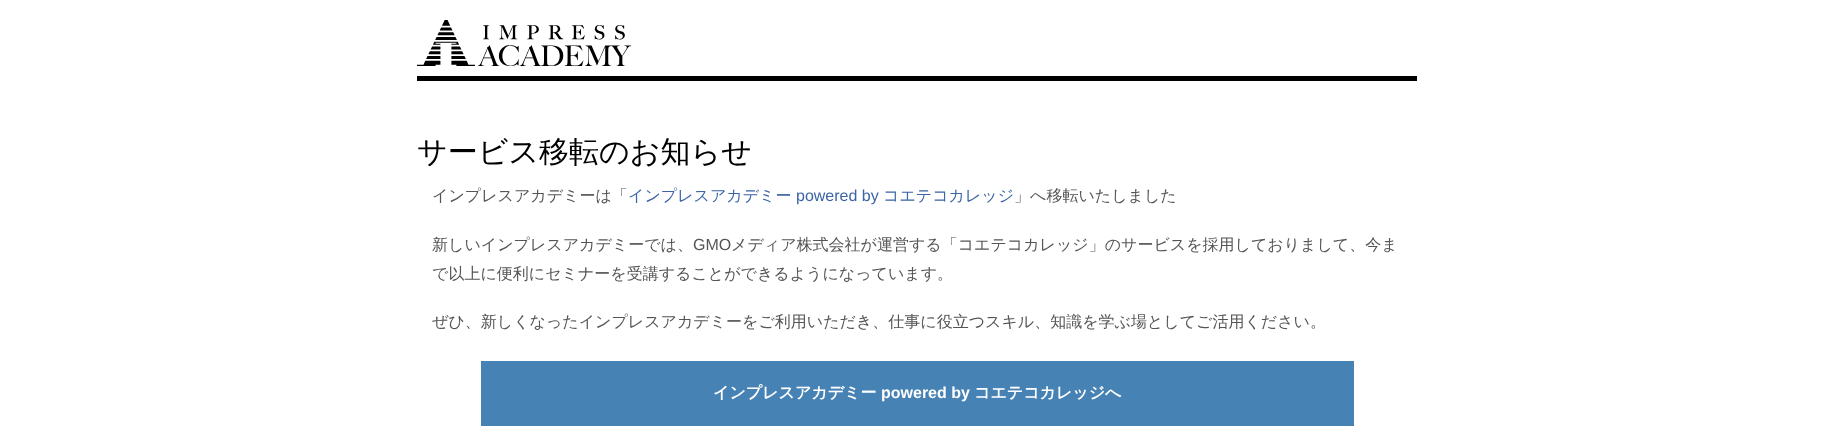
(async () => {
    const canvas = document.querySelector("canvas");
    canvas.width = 1834;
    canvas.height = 434;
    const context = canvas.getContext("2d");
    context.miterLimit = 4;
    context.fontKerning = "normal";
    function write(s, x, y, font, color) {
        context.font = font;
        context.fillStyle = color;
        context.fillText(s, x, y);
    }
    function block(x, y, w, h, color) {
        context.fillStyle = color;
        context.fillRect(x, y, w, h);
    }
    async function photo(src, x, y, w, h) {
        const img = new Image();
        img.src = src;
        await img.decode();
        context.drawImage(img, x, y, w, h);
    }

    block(0, 0, 1834, 434, "rgb(255, 255, 255)");
    block(417, 76, 1000, 5, "rgb(0, 0, 0)");
    await photo("media/1.png", 417, 20, 214, 46);
    write("サービス移転のお知らせ", 417, 162, "500 30px WenQuanYi Zen Hei", "rgb(0, 0, 0)");
    write("インプレスアカデミーは「", 432, 201, "500 16px WenQuanYi Zen Hei", "rgb(85, 85, 85)");
    write("インプレスアカデミー", 628, 201, "500 16px WenQuanYi Zen Hei", "rgb(59, 101, 165)");
    write("powered by", 796, 201, "16px Liberation Sans", "rgb(59, 101, 165)");
    write("コエテコカレッジ", 883, 201, "500 16px WenQuanYi Zen Hei", "rgb(59, 101, 165)");
    write("」へ移転いたしました", 1014, 201, "500 16px WenQuanYi Zen Hei", "rgb(85, 85, 85)");
    write("新しいインプレスアカデミーでは、", 432, 250, "500 16px WenQuanYi Zen Hei", "rgb(85, 85, 85)");
    write("GMO", 693, 250, "16px Liberation Sans", "rgb(85, 85, 85)");
    write("メディア株式会社が運営する「コエテコカレッジ」のサービスを採用しておりまして、今ま", 731, 250, "500 16px WenQuanYi Zen Hei", "rgb(85, 85, 85)");
    write("で以上に便利にセミナーを受講することができるようになっています。", 432, 279, "500 16px WenQuanYi Zen Hei", "rgb(85, 85, 85)");
    write("ぜひ、新しくなったインプレスアカデミーをご利用いただき、仕事に役立つスキル、知識を学ぶ場としてご活用ください。", 432, 327, "500 16px WenQuanYi Zen Hei", "rgb(85, 85, 85)");
    block(481, 361, 873, 65, "rgb(70, 130, 180)");
    write("インプレスアカデミー", 713, 398, "bold 16px WenQuanYi Zen Hei", "rgb(255, 255, 255)");
    write("powered by", 881, 398, "bold 16px Liberation Sans", "rgb(255, 255, 255)");
    write("コエテコカレッジへ", 974, 398, "bold 16px WenQuanYi Zen Hei", "rgb(255, 255, 255)");
})();
